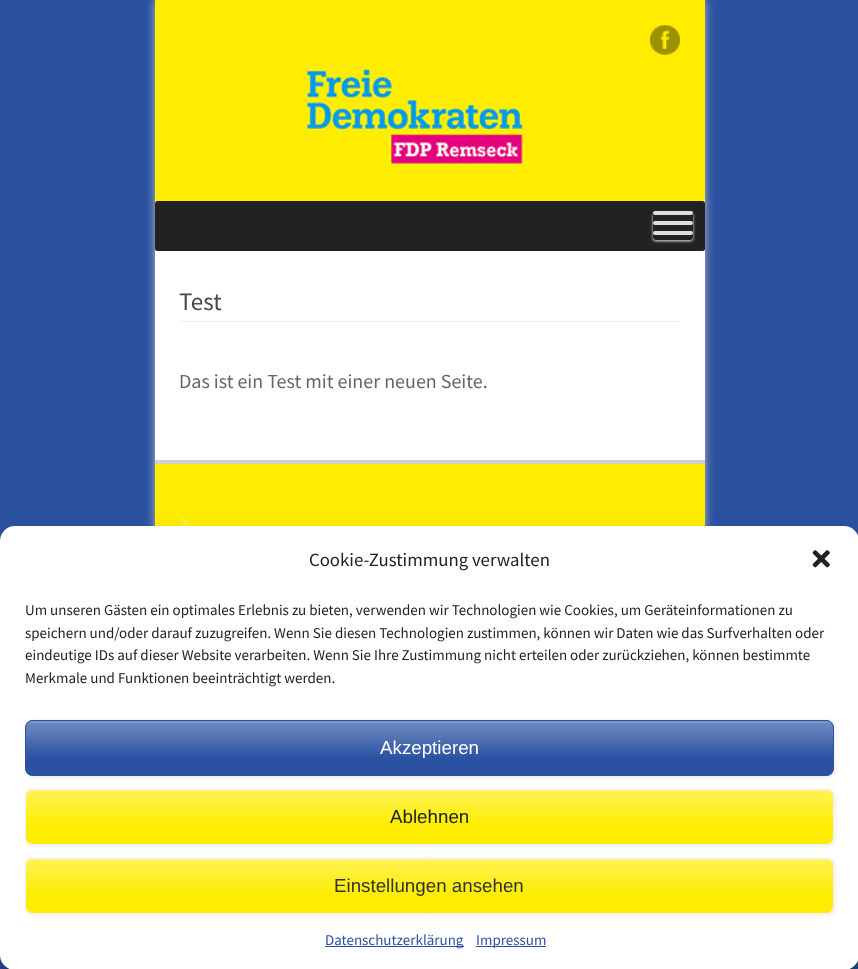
(async () => {
    const canvas = document.querySelector("canvas");
    canvas.width = 858;
    canvas.height = 969;
    const context = canvas.getContext("2d");
    context.miterLimit = 4;
    context.fontKerning = "normal";
    function write(s, x, y, font, color) {
        context.font = font;
        context.fillStyle = color;
        context.fillText(s, x, y);
    }
    function block(x, y, w, h, color) {
        context.fillStyle = color;
        context.fillRect(x, y, w, h);
    }
    function card(x, y, w, h, r, color) {
        context.fillStyle = color;
        context.beginPath();
        context.roundRect(x, y, w, h, r);
        context.fill();
    }
    async function photo(src, x, y, w, h) {
        const img = new Image();
        img.src = src;
        await img.decode();
        context.drawImage(img, x, y, w, h);
    }

    block(0, 0, 858, 969, "rgb(43, 82, 161)");
    context.fillStyle = "rgb(187, 187, 187)";
    context.filter = "blur(5px)";
    context.beginPath();
    context.rect(155, 0, 550, 720);
    context.fill();
    context.filter = "none";
    block(155, 201, 550, 259, "rgb(255, 255, 255)");
    block(155, 0, 550, 201, "rgb(254, 237, 1)");
    await photo("media/1.png", 650, 25, 30, 30);
    await photo("media/2.png", 305, 67, 219, 99);
    card(155, 201, 550, 50, 2.5, "rgb(34, 34, 34)");
    context.save();
    context.beginPath();
    context.moveTo(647, 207);
    context.lineTo(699, 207);
    context.lineTo(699, 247);
    context.lineTo(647, 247);
    context.closePath();
    context.moveTo(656, 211);
    context.lineTo(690, 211);
    context.bezierCurveTo(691.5, 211, 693, 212.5, 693, 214);
    context.lineTo(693, 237);
    context.bezierCurveTo(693, 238.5, 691.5, 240, 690, 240);
    context.lineTo(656, 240);
    context.bezierCurveTo(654.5, 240, 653, 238.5, 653, 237);
    context.lineTo(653, 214);
    context.bezierCurveTo(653, 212.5, 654.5, 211, 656, 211);
    context.closePath();
    context.clip("evenodd");
    context.fillStyle = "rgb(236, 236, 236)";
    context.filter = "blur(1.5px)";
    context.beginPath();
    context.roundRect(653, 213, 40, 28, 3);
    context.fill();
    context.filter = "none";
    context.restore();
    card(653, 211, 40, 4, 2, "rgb(221, 221, 221)");
    card(653, 221, 40, 4, 2, "rgb(221, 221, 221)");
    card(653, 231, 40, 4, 2, "rgb(221, 221, 221)");
    block(180, 321, 500, 1, "rgb(236, 236, 236)");
    write("Test", 179, 310, "25px Source Sans Pro", "rgb(73, 73, 73)");
    write("Das ist ein Test mit einer neuen Seite.", 179, 388, "20px Source Sans Pro", "rgb(102, 102, 102)");
    block(155, 460, 550, 4, "rgb(207, 207, 207)");
    block(155, 464, 550, 62, "rgb(254, 237, 1)");
    await photo("media/3.png", 180, 518, 10, 8);
    context.fillStyle = "rgba(0, 0, 0, 0.23)";
    context.filter = "blur(4px)";
    context.beginPath();
    context.roundRect(0, 534, 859, 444, 15);
    context.fill();
    context.filter = "none";
    context.fillStyle = "rgba(0, 0, 0, 0.19)";
    context.filter = "blur(12.5px)";
    context.beginPath();
    context.roundRect(0, 539, 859, 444, 15);
    context.fill();
    context.filter = "none";
    card(0, 526, 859, 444, 15, "rgb(255, 255, 255)");
    write("Cookie-Zustimmung verwalten", 309, 566, "18.75px Source Sans Pro", "rgb(34, 34, 34)");
    await photo("media/4.png", 812, 550, 18, 18);
    write("Um unseren Gästen ein optimales Erlebnis zu bieten, verwenden wir Technologien wie Cookies, um Geräteinformationen zu", 25, 615, "15px Source Sans Pro", "rgb(34, 34, 34)");
    write("speichern und/oder darauf zuzugreifen. Wenn Sie diesen Technologien zustimmen, können wir Daten wie das Surfverhalten oder", 25, 638, "15px Source Sans Pro", "rgb(34, 34, 34)");
    write("eindeutige IDs auf dieser Website verarbeiten. Wenn Sie Ihre Zustimmung nicht erteilen oder zurückziehen, können bestimmte", 25, 660, "15px Source Sans Pro", "rgb(34, 34, 34)");
    write("Merkmale und Funktionen beeinträchtigt werden.", 25, 683, "15px Source Sans Pro", "rgb(34, 34, 34)");
    context.fillStyle = "rgb(236, 236, 236)";
    context.filter = "blur(2px)";
    context.beginPath();
    context.roundRect(26, 721, 809, 57, 8);
    context.fill();
    context.filter = "none";
    card(25, 720, 809, 56, 8, "rgb(43, 82, 162)");
    await photo("media/5.png", 25, 721, 809, 36);
    context.beginPath();
    context.roundRect(25.5, 720.5, 808, 55, 7.5);
    context.strokeStyle = "rgb(43, 82, 162)";
    context.stroke();
    write("Akzeptieren", 380, 754, "18.75px Liberation Sans", "rgb(255, 255, 255)");
    context.fillStyle = "rgb(236, 236, 236)";
    context.filter = "blur(2px)";
    context.beginPath();
    context.roundRect(26, 790, 809, 56, 8);
    context.fill();
    context.filter = "none";
    card(25, 789, 809, 56, 8, "rgb(254, 237, 1)");
    await photo("media/6.png", 25, 790, 809, 35);
    context.beginPath();
    context.roundRect(25.5, 789.5, 808, 55, 7.5);
    context.strokeStyle = "rgb(242, 242, 242)";
    context.stroke();
    write("Ablehnen", 390, 823, "18.75px Liberation Sans", "rgb(34, 34, 34)");
    context.fillStyle = "rgb(236, 236, 236)";
    context.filter = "blur(2px)";
    context.beginPath();
    context.roundRect(26, 859, 809, 56, 8);
    context.fill();
    context.filter = "none";
    card(25, 858, 809, 56, 8, "rgb(254, 237, 1)");
    await photo("media/7.png", 25, 858, 809, 36);
    context.beginPath();
    context.roundRect(25.5, 858.5, 808, 55, 7.5);
    context.stroke();
    write("Einstellungen ansehen", 334, 892, "18.75px Liberation Sans", "rgb(51, 51, 51)");
    block(325, 946, 139, 1, "rgb(43, 82, 162)");
    write("Datenschutzerklärung", 325, 945, "15px Source Sans Pro", "rgb(43, 82, 162)");
    block(476, 946, 70, 1, "rgb(43, 82, 162)");
    write("Impressum", 476, 945, "15px Source Sans Pro", "rgb(43, 82, 162)");
})();
